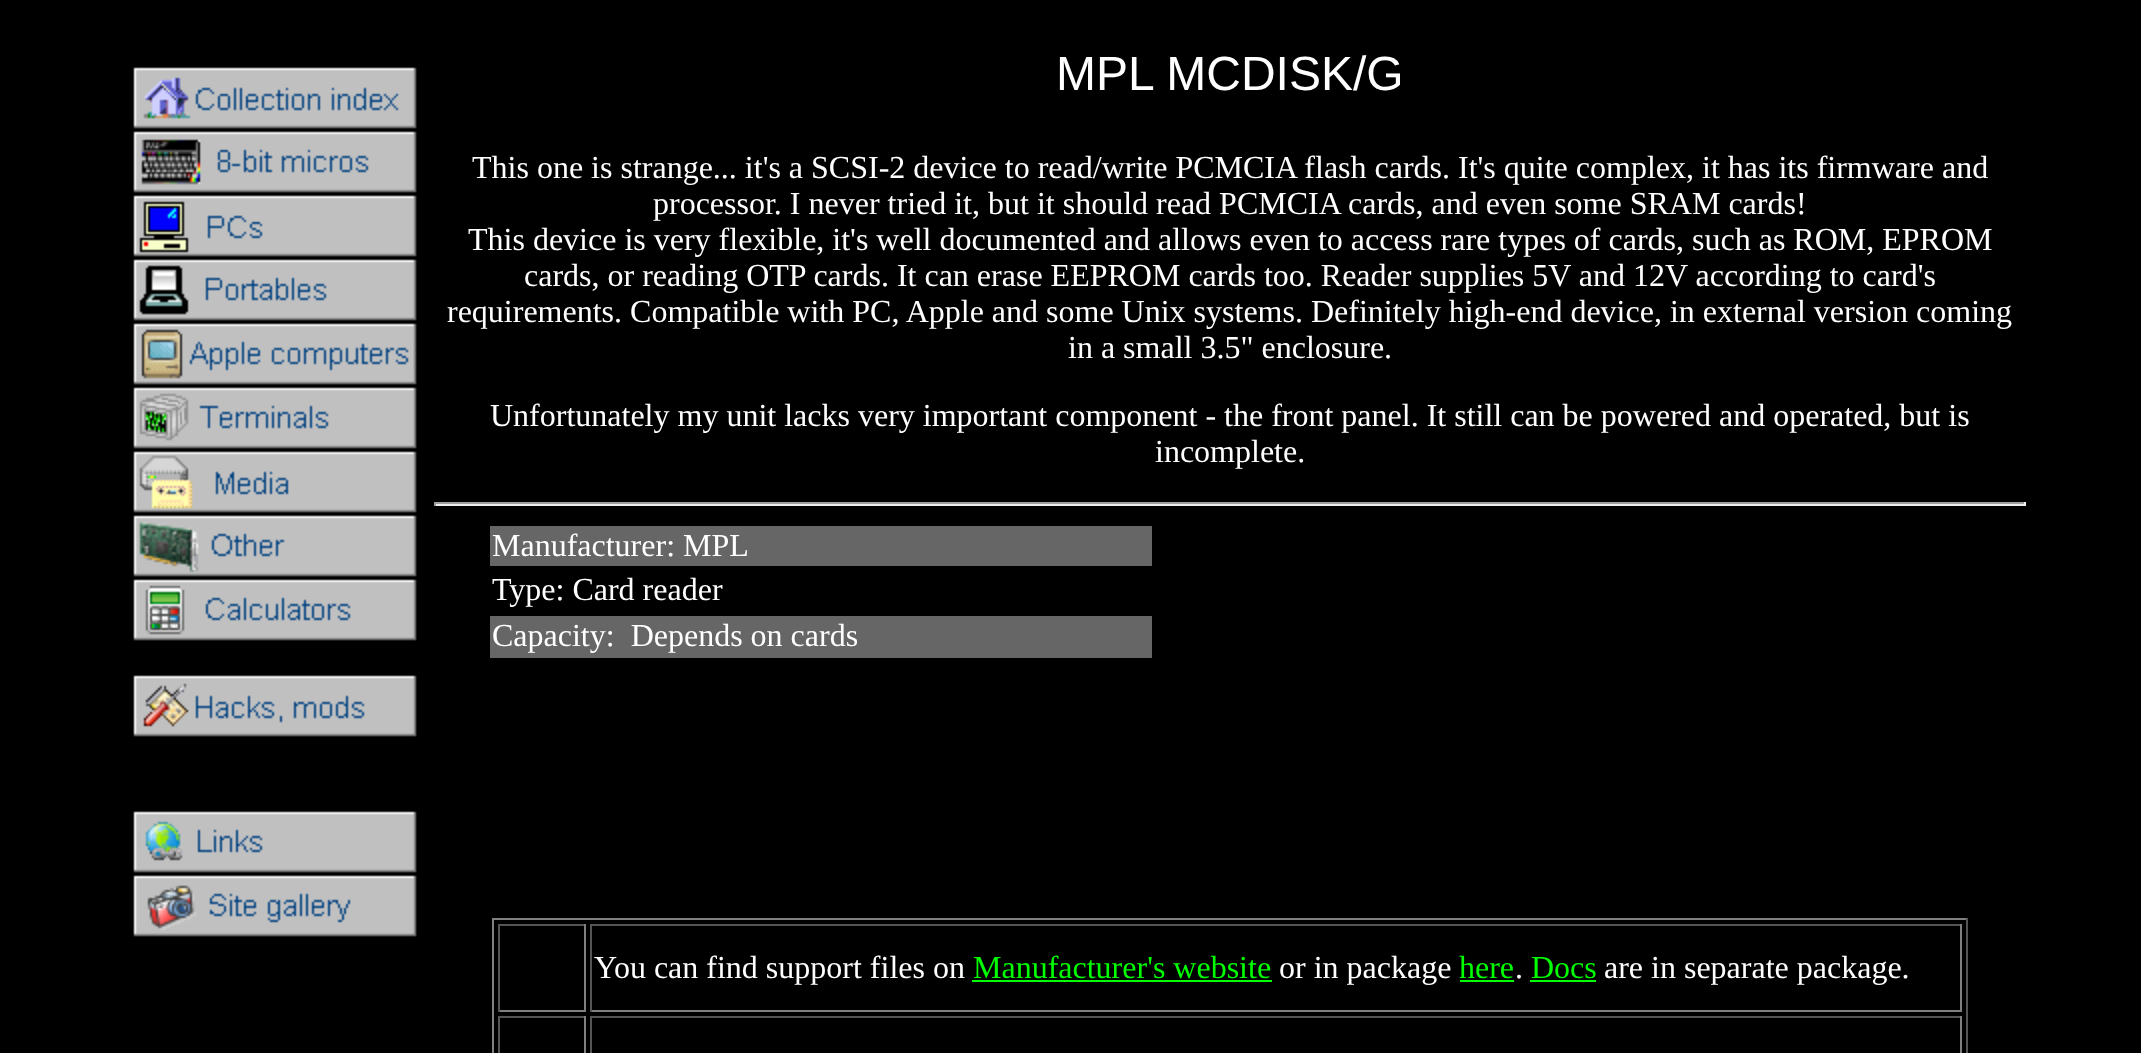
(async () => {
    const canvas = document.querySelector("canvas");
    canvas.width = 2141;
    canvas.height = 1053;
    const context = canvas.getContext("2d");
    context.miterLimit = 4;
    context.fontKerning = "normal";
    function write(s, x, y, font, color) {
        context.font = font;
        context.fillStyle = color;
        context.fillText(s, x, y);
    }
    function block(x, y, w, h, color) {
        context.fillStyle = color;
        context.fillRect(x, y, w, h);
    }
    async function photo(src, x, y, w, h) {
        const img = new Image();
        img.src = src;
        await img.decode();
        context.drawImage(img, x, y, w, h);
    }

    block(0, 0, 2141, 1053, "rgb(0, 0, 0)");
    await photo("media/1.png", 133, 67, 284, 62);
    await photo("media/2.png", 133, 131, 284, 62);
    await photo("media/3.png", 133, 195, 284, 62);
    await photo("media/4.png", 133, 259, 284, 62);
    await photo("media/5.png", 133, 323, 284, 62);
    await photo("media/6.png", 133, 387, 284, 62);
    await photo("media/7.png", 133, 451, 284, 62);
    await photo("media/8.png", 133, 515, 284, 62);
    await photo("media/9.png", 133, 579, 284, 62);
    await photo("media/10.png", 133, 675, 284, 62);
    await photo("media/11.png", 133, 811, 284, 62);
    await photo("media/12.png", 133, 875, 284, 62);
    write("MPL MCDISK/G", 1056, 90, "48px Liberation Sans", "rgb(255, 255, 255)");
    write("This one is strange... it's a SCSI-2 device to read/write PCMCIA flash cards. It's quite complex, it has its firmware and", 472, 178, "32px Liberation Serif", "rgb(255, 255, 255)");
    write("processor. I never tried it, but it should read PCMCIA cards, and even some SRAM cards!", 653, 214, "32px Liberation Serif", "rgb(255, 255, 255)");
    write("This device is very flexible, it's well documented and allows even to access rare types of cards, such as ROM, EPROM", 468, 250, "32px Liberation Serif", "rgb(255, 255, 255)");
    write("cards, or reading OTP cards. It can erase EEPROM cards too. Reader supplies 5V and 12V according to card's", 524, 286, "32px Liberation Serif", "rgb(255, 255, 255)");
    write("requirements. Compatible with PC, Apple and some Unix systems. Definitely high-end device, in external version coming", 447, 322, "32px Liberation Serif", "rgb(255, 255, 255)");
    write("in a small 3.5\" enclosure.", 1068, 358, "32px Liberation Serif", "rgb(255, 255, 255)");
    write("Unfortunately my unit lacks very important component - the front panel. It still can be powered and operated, but is", 490, 426, "32px Liberation Serif", "rgb(255, 255, 255)");
    write("incomplete.", 1155, 462, "32px Liberation Serif", "rgb(255, 255, 255)");
    block(434, 502, 1592, 2, "rgb(159, 159, 159)");
    block(2024, 502, 2, 4, "rgb(238, 238, 238)");
    block(434, 504, 1592, 2, "rgb(238, 238, 238)");
    block(434, 502, 2, 4, "rgb(159, 159, 159)");
    block(490, 526, 662, 40, "rgb(102, 102, 102)");
    write("Manufacturer: MPL", 492, 556, "32px Liberation Serif", "rgb(255, 255, 255)");
    write("Type: Card reader", 492, 600, "32px Liberation Serif", "rgb(255, 255, 255)");
    block(490, 616, 662, 42, "rgb(102, 102, 102)");
    write("Capacity:  Depends on cards", 492, 646, "32px Liberation Serif", "rgb(255, 255, 255)");
    block(492, 918, 1476, 2, "rgb(128, 128, 128)");
    block(1966, 918, 2, 135, "rgb(85, 85, 85)");
    block(492, 918, 2, 135, "rgb(128, 128, 128)");
    block(498, 924, 88, 2, "rgb(85, 85, 85)");
    block(584, 924, 2, 88, "rgb(128, 128, 128)");
    block(498, 1010, 88, 2, "rgb(128, 128, 128)");
    block(498, 924, 2, 88, "rgb(85, 85, 85)");
    block(590, 924, 1372, 2, "rgb(85, 85, 85)");
    block(1960, 924, 2, 88, "rgb(128, 128, 128)");
    block(590, 1010, 1372, 2, "rgb(128, 128, 128)");
    block(590, 924, 2, 88, "rgb(85, 85, 85)");
    write("You can find support files on", 594, 978, "32px Liberation Serif", "rgb(255, 255, 255)");
    write("Manufacturer's website", 973, 978, "32px Liberation Serif", "rgb(0, 255, 0)");
    block(972, 980, 300, 2, "rgb(0, 255, 0)");
    write("or in package", 1279, 978, "32px Liberation Serif", "rgb(255, 255, 255)");
    write("here", 1459, 978, "32px Liberation Serif", "rgb(0, 255, 0)");
    block(1460, 980, 54, 2, "rgb(0, 255, 0)");
    write(".", 1515, 978, "32px Liberation Serif", "rgb(255, 255, 255)");
    write("Docs", 1531, 978, "32px Liberation Serif", "rgb(0, 255, 0)");
    block(1530, 980, 66, 2, "rgb(0, 255, 0)");
    write("are in separate package.", 1604, 978, "32px Liberation Serif", "rgb(255, 255, 255)");
    block(498, 1016, 88, 2, "rgb(85, 85, 85)");
    block(584, 1016, 2, 37, "rgb(128, 128, 128)");
    block(498, 1016, 2, 37, "rgb(85, 85, 85)");
    block(590, 1016, 1372, 2, "rgb(85, 85, 85)");
    block(1960, 1016, 2, 37, "rgb(128, 128, 128)");
    block(590, 1016, 2, 37, "rgb(85, 85, 85)");
})();
